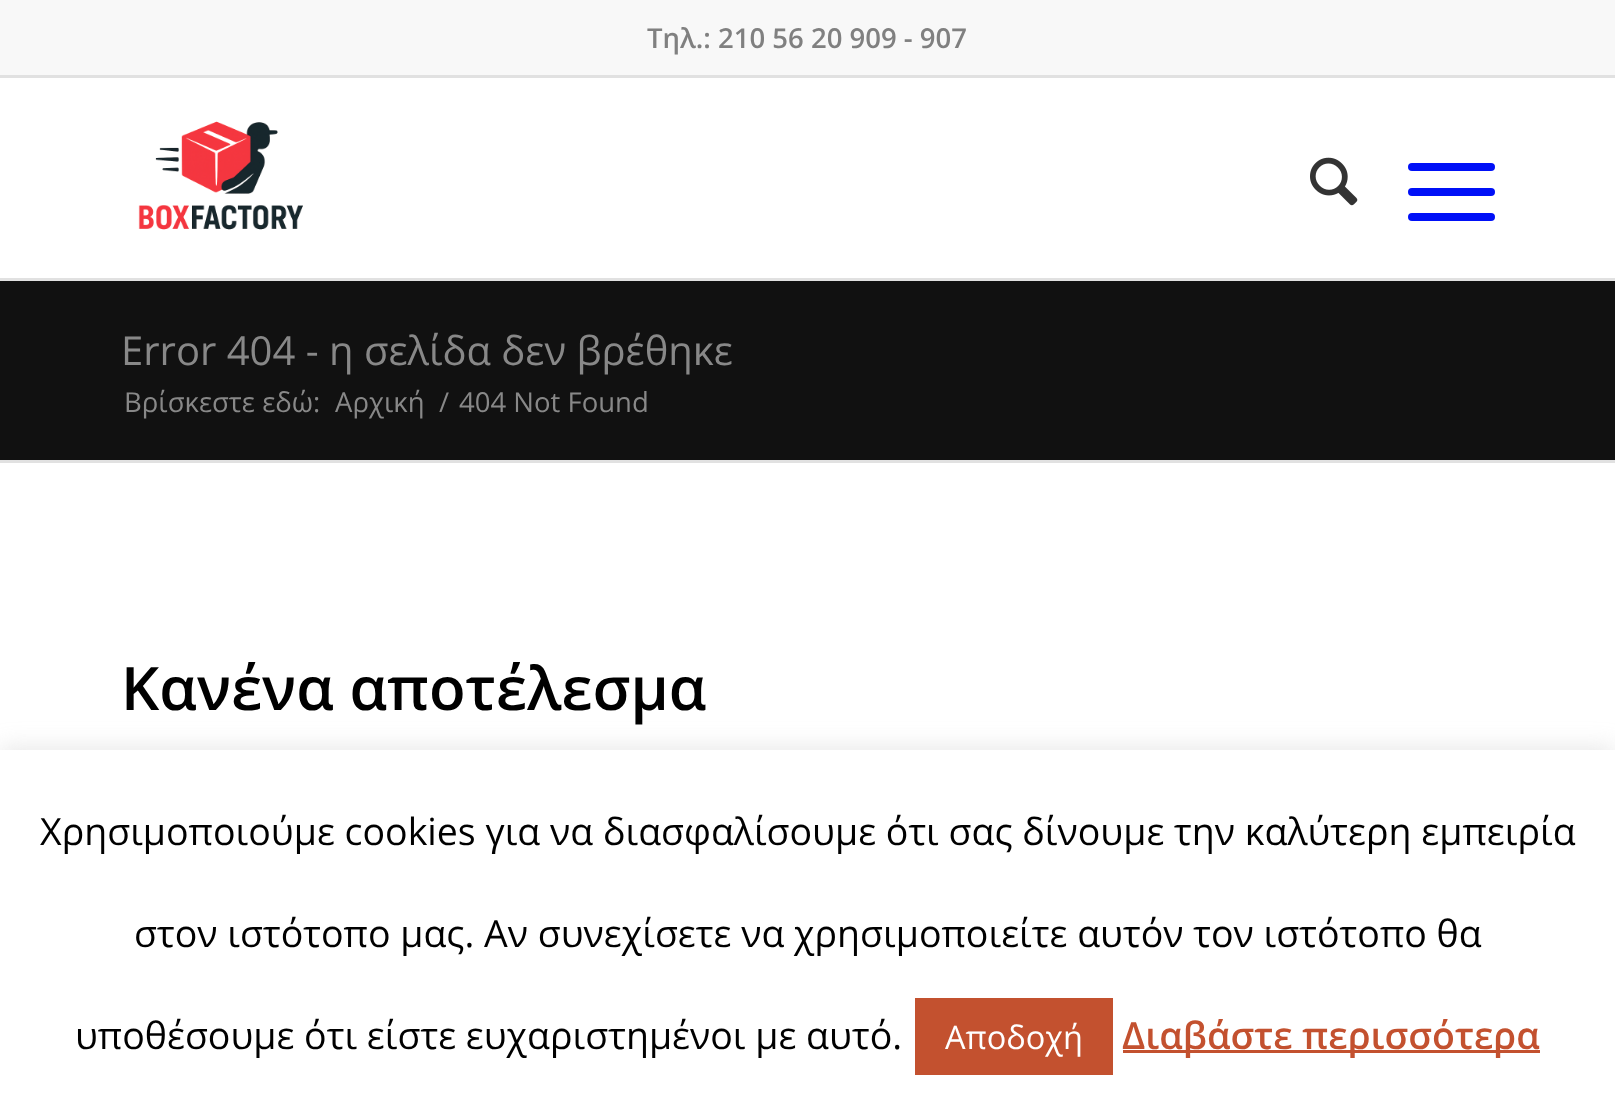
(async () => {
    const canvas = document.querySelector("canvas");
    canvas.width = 1615;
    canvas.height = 1114;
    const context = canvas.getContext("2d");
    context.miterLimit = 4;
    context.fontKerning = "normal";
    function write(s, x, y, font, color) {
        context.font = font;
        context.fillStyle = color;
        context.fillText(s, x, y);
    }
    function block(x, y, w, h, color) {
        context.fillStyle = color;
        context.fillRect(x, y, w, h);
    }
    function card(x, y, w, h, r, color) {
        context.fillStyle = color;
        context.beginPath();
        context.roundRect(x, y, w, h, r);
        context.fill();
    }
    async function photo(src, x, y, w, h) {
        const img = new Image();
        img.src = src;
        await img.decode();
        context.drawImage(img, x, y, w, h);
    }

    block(0, 0, 1615, 1114, "rgb(255, 255, 255)");
    block(0, 0, 1615, 75, "rgb(248, 248, 248)");
    block(0, 75, 1615, 3, "rgb(225, 225, 225)");
    write("Τηλ.: 210 56 20 909 - 907", 647, 48, "600 27.5px Open Sans", "rgb(128, 128, 128)");
    block(0, 278, 1615, 3, "rgb(225, 225, 225)");
    await photo("media/1.png", 138, 121, 165, 109);
    await photo("media/2.png", 1310, 157, 48, 49);
    card(1408, 188, 87, 8, 4, "rgb(0, 16, 247)");
    card(1408, 163, 87, 8, 4, "rgb(0, 16, 247)");
    card(1408, 213, 87, 8, 4, "rgb(0, 16, 247)");
    block(0, 281, 1615, 179, "rgb(17, 17, 17)");
    write("Error 404 - η σελίδα δεν βρέθηκε", 121, 365, "40px Open Sans", "rgb(136, 136, 136)");
    write("Βρίσκεστε εδώ:", 124, 412, "27.5px Open Sans", "rgb(136, 136, 136)");
    write("Αρχική", 335, 412, "27.5px Open Sans", "rgb(136, 136, 136)");
    write("/", 439, 412, "27.5px Open Sans", "rgb(136, 136, 136)");
    write("404 Not Found", 459, 412, "27.5px Open Sans", "rgb(136, 136, 136)");
    block(0, 460, 1615, 3, "rgb(225, 225, 225)");
    write("Κανένα αποτέλεσμα", 121, 710, "600 60px Open Sans", "rgb(0, 0, 0)");
    context.fillStyle = "rgba(172, 171, 171, 0.3)";
    context.filter = "blur(12.5px)";
    context.beginPath();
    context.rect(0, 748, 1615, 365);
    context.fill();
    context.filter = "none";
    block(0, 750, 1615, 364, "rgb(255, 255, 255)");
    write("Χρησιμοποιούμε cookies για να διασφαλίσουμε ότι σας δίνουμε την καλύτερη εμπειρία", 40, 845, "37.5px Open Sans", "rgb(0, 0, 0)");
    write("στον ιστότοπο μας. Αν συνεχίσετε να χρησιμοποιείτε αυτόν τον ιστότοπο θα", 134, 947, "37.5px Open Sans", "rgb(0, 0, 0)");
    write("υποθέσουμε ότι είστε ευχαριστημένοι με αυτό.", 75, 1049, "37.5px Open Sans", "rgb(0, 0, 0)");
    block(915, 998, 198, 77, "rgb(195, 81, 47)");
    write("Αποδοχή", 945, 1049, "32.5px Open Sans", "rgb(255, 255, 255)");
    block(1123, 1050, 417, 3, "rgb(195, 81, 47)");
    write("Διαβάστε περισσότερα", 1122, 1049, "600 37.5px Open Sans", "rgb(195, 81, 47)");
})();
